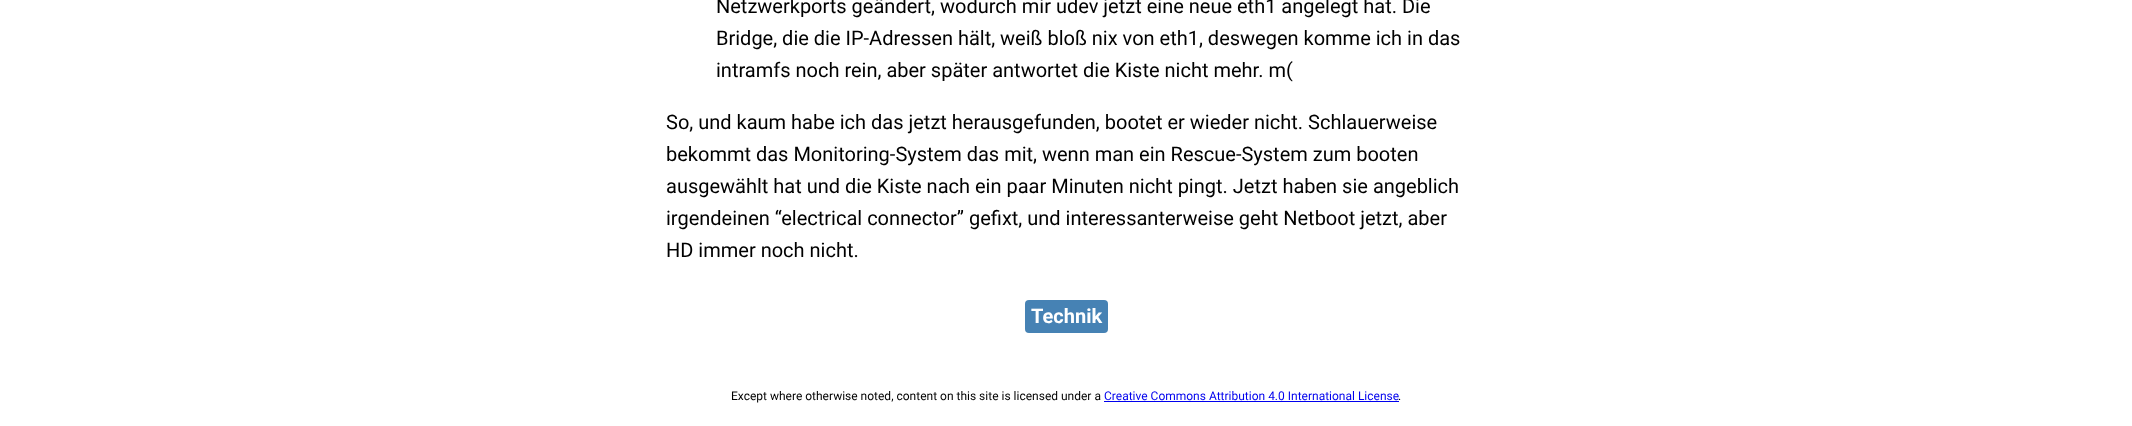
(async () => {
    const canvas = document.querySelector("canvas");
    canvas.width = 2132;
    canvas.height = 426;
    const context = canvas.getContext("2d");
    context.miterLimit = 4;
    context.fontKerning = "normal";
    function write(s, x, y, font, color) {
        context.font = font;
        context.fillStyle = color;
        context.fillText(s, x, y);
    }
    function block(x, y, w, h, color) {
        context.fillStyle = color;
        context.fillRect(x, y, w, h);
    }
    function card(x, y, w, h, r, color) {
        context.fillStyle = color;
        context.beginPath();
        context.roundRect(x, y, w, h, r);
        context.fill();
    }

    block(0, 0, 2132, 426, "rgb(255, 255, 255)");
    write("Netzwerkports geändert, wodurch mir udev jetzt eine neue eth1 angelegt hat. Die", 716, 13, "20px Roboto", "rgb(0, 0, 0)");
    write("Bridge, die die IP-Adressen hält, weiß bloß nix von eth1, deswegen komme ich in das", 716, 45, "20px Roboto", "rgb(0, 0, 0)");
    write("intramfs noch rein, aber später antwortet die Kiste nicht mehr. m(", 716, 77, "20px Roboto", "rgb(0, 0, 0)");
    write("So, und kaum habe ich das jetzt herausgefunden, bootet er wieder nicht. Schlauerweise", 666, 129, "20px Roboto", "rgb(0, 0, 0)");
    write("bekommt das Monitoring-System das mit, wenn man ein Rescue-System zum booten", 666, 161, "20px Roboto", "rgb(0, 0, 0)");
    write("ausgewählt hat und die Kiste nach ein paar Minuten nicht pingt. Jetzt haben sie angeblich", 666, 193, "20px Roboto", "rgb(0, 0, 0)");
    write("irgendeinen “electrical connector” gefixt, und interessanterweise geht Netboot jetzt, aber", 666, 225, "20px Roboto", "rgb(0, 0, 0)");
    write("HD immer noch nicht.", 666, 257, "20px Roboto", "rgb(0, 0, 0)");
    card(1025, 300, 83, 33, 4, "rgb(70, 130, 180)");
    write("Technik", 1031, 323, "bold 20px Roboto", "rgb(255, 255, 255)");
    write("Except where otherwise noted, content on this site is licensed under a", 731, 400, "12px Roboto", "rgb(0, 0, 0)");
    write("Creative Commons Attribution 4.0 International License", 1104, 400, "12px Roboto", "rgb(0, 0, 238)");
    block(1104, 401, 295, 1, "rgb(0, 0, 238)");
    write(".", 1398, 400, "12px Roboto", "rgb(0, 0, 0)");
})();
